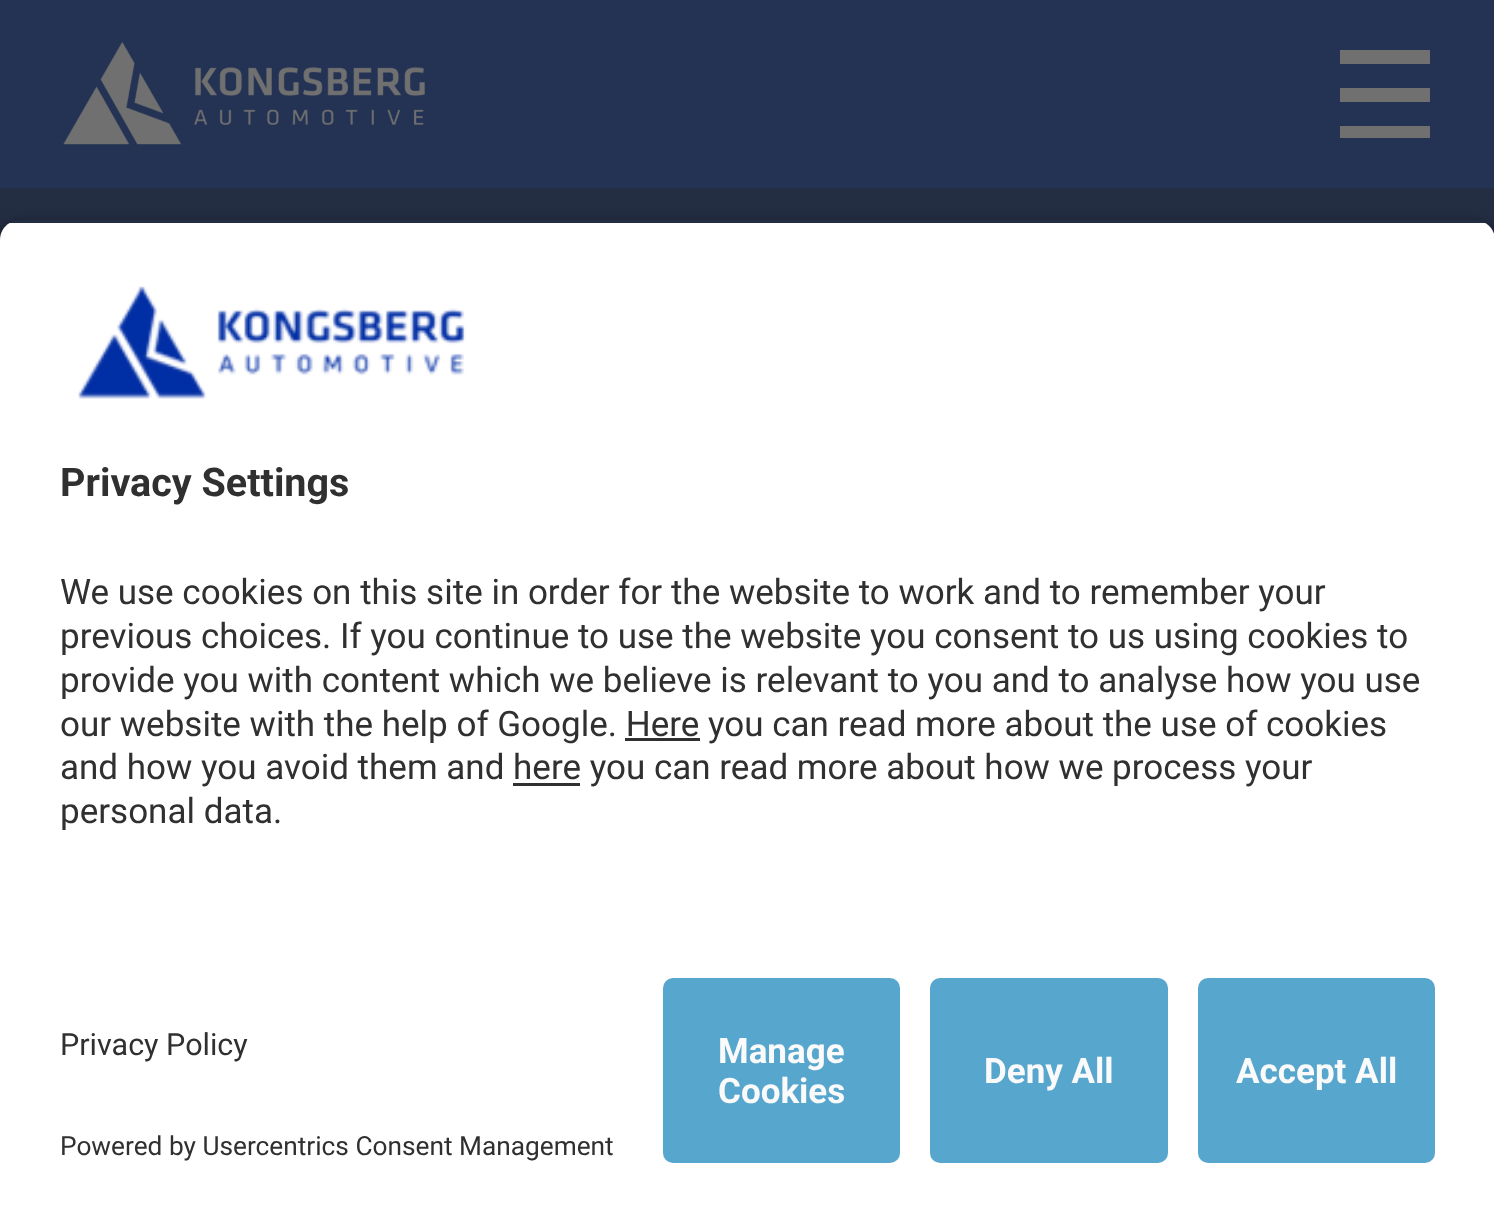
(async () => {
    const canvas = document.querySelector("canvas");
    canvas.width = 1494;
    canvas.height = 1222;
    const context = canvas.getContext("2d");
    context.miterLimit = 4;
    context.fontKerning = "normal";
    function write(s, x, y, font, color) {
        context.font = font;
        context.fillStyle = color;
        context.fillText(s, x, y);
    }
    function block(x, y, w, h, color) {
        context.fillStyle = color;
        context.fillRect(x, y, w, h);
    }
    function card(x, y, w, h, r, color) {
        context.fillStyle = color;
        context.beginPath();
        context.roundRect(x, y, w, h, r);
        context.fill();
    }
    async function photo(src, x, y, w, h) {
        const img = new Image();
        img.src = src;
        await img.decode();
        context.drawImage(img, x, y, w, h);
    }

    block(0, 0, 1494, 1222, "rgb(36, 51, 84)");
    await photo("media/1.png", 63, 41, 362, 104);
    context.save();
    context.beginPath();
    context.rect(1340, 50, 90, 88);
    context.clip();
    context.fillStyle = "rgb(112, 112, 112)";
    context.beginPath();
    context.moveTo(1340, 126);
    context.lineTo(1430, 126);
    context.lineTo(1430, 140);
    context.lineTo(1340, 140);
    context.closePath();
    context.moveTo(1340, 102);
    context.lineTo(1430, 102);
    context.lineTo(1430, 88);
    context.lineTo(1340, 88);
    context.closePath();
    context.moveTo(1340, 50);
    context.lineTo(1340, 64);
    context.lineTo(1430, 64);
    context.lineTo(1430, 50);
    context.closePath();
    context.fill();
    context.restore();
    block(0, 188, 1494, 52, "rgb(36, 46, 67)");
    context.save();
    context.beginPath();
    context.moveTo(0, 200);
    context.lineTo(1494, 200);
    context.lineTo(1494, 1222);
    context.lineTo(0, 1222);
    context.closePath();
    context.moveTo(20, 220);
    context.lineTo(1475, 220);
    context.bezierCurveTo(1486, 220, 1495, 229, 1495, 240);
    context.lineTo(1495, 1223);
    context.lineTo(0, 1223);
    context.lineTo(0, 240);
    context.bezierCurveTo(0, 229, 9, 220, 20, 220);
    context.closePath();
    context.clip("evenodd");
    context.fillStyle = "rgba(0, 0, 0, 0.8)";
    context.filter = "blur(9px)";
    context.beginPath();
    context.roundRect(0, 228, 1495, 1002, 20);
    context.fill();
    context.filter = "none";
    context.restore();
    context.save();
    context.beginPath();
    context.moveTo(20, 220);
    context.lineTo(1475, 220);
    context.bezierCurveTo(1486, 220, 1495, 229, 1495, 240);
    context.lineTo(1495, 958);
    context.lineTo(0, 958);
    context.lineTo(0, 240);
    context.bezierCurveTo(0, 229, 9, 220, 20, 220);
    context.closePath();
    context.clip();
    block(0, 223, 1494, 735, "rgb(255, 255, 255)");
    context.restore();
    await photo("media/2.png", 78, 286, 388, 113);
    write("Privacy Settings", 60, 496, "bold 39.5px Roboto", "rgb(48, 48, 48)");
    write("We use cookies on this site in order for the website to work and to remember your", 60, 604, "35px Roboto", "rgb(48, 48, 48)");
    write("previous choices. If you continue to use the website you consent to us using cookies to", 60, 648, "35px Roboto", "rgb(48, 48, 48)");
    write("provide you with content which we believe is relevant to you and to analyse how you use", 60, 692, "35px Roboto", "rgb(48, 48, 48)");
    write("our website with the help of Google. Here you can read more about the use of cookies", 60, 736, "35px Roboto", "rgb(48, 48, 48)");
    block(625, 738, 75, 3, "rgb(48, 48, 48)");
    write("and how you avoid them and here you can read more about how we process your", 60, 779, "35px Roboto", "rgb(48, 48, 48)");
    block(513, 783, 67, 3, "rgb(48, 48, 48)");
    write("personal data.", 60, 823, "35px Roboto", "rgb(48, 48, 48)");
    block(0, 958, 1494, 264, "rgb(255, 255, 255)");
    write("Privacy Policy", 60, 1055, "30.5px Roboto", "rgb(48, 48, 48)");
    write("Powered by Usercentrics Consent Management", 60, 1155, "26.25px Roboto", "rgb(48, 48, 48)");
    card(663, 978, 237, 185, 10, "rgb(87, 166, 205)");
    write("Manage", 718, 1063, "bold 35px Roboto", "rgb(250, 250, 250)");
    write("Cookies", 718, 1103, "bold 35px Roboto", "rgb(250, 250, 250)");
    card(930, 978, 238, 185, 10, "rgb(87, 166, 205)");
    write("Deny All", 984, 1083, "bold 35px Roboto", "rgb(250, 250, 250)");
    card(1198, 978, 237, 185, 10, "rgb(87, 166, 205)");
    write("Accept All", 1236, 1083, "bold 35px Roboto", "rgb(250, 250, 250)");
})();
